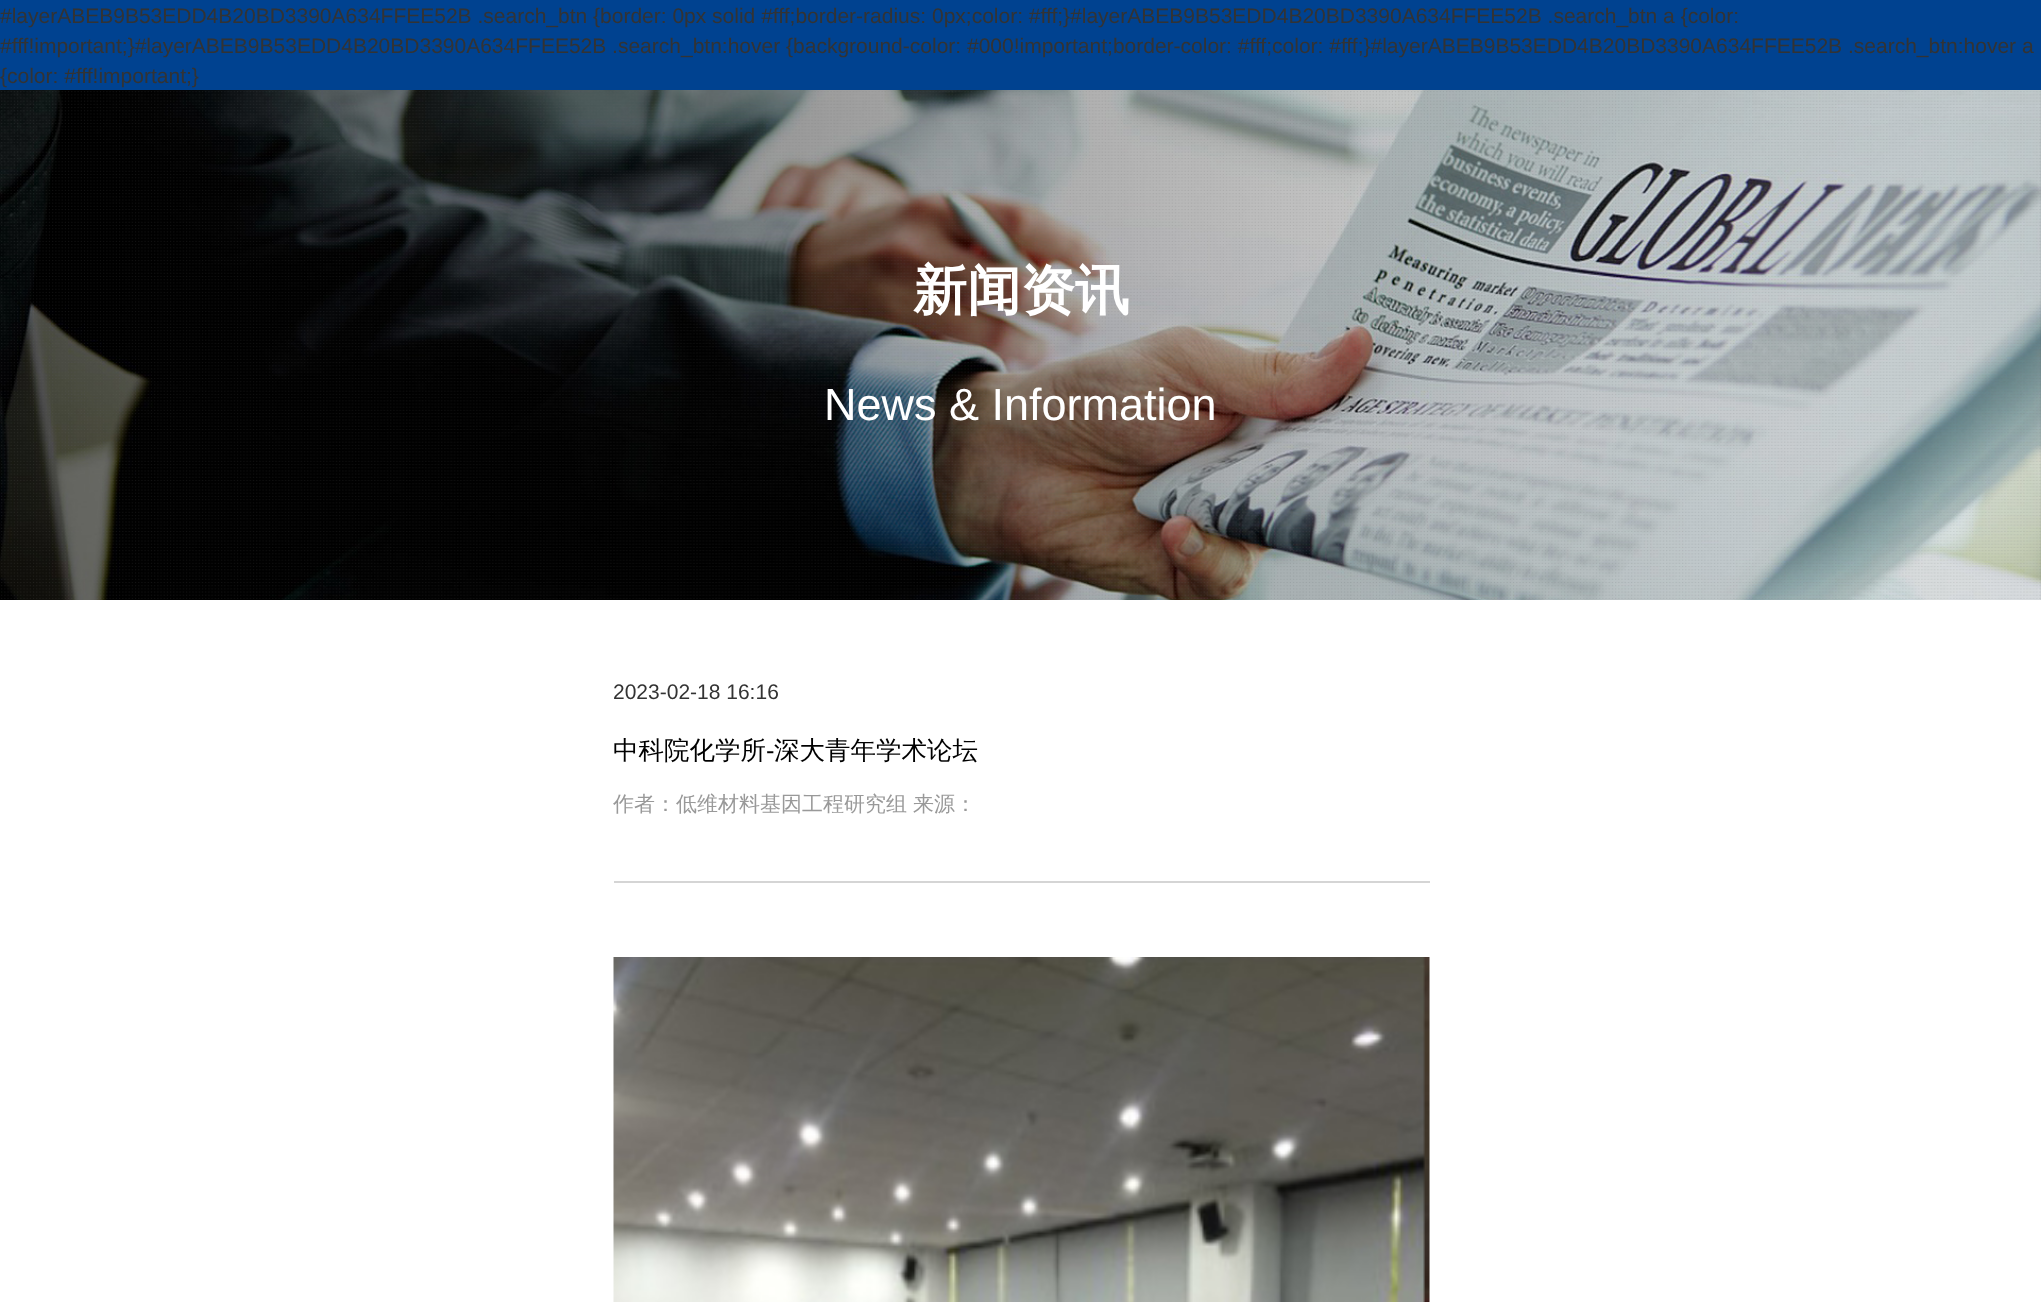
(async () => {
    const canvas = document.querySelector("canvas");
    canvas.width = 2041;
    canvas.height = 1302;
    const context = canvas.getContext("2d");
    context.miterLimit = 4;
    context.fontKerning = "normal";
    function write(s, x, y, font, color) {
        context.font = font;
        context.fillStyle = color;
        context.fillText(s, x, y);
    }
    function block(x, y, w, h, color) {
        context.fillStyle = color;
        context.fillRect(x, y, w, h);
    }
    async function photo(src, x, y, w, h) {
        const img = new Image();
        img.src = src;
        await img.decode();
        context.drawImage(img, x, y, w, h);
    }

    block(0, 0, 2041, 1302, "rgb(255, 255, 255)");
    block(0, 0, 2041, 90, "rgb(0, 66, 144)");
    write("#layerABEB9B53EDD4B20BD3390A634FFEE52B .search_btn {border: 0px solid #fff;border-radius: 0px;color: #fff;}#layerABEB9B53EDD4B20BD3390A634FFEE52B .search_btn a {color:", 0, 23, "21px Liberation Sans", "rgb(51, 51, 51)");
    write("#fff!important;}#layerABEB9B53EDD4B20BD3390A634FFEE52B .search_btn:hover {background-color: #000!important;border-color: #fff;color: #fff;}#layerABEB9B53EDD4B20BD3390A634FFEE52B .search_btn:hover a", 0, 53, "21px Liberation Sans", "rgb(51, 51, 51)");
    write("{color: #fff!important;}", 0, 83, "21px Liberation Sans", "rgb(51, 51, 51)");
    await photo("media/1.png", 0, 90, 2041, 510);
    write("新闻资讯", 913, 309, "bold 54px WenQuanYi Zen Hei", "rgb(255, 255, 255)");
    write("News & Information", 824, 420, "45px Liberation Sans", "rgb(255, 255, 255)");
    write("2023-02-18 16:16", 613, 699, "21px Liberation Sans", "rgb(51, 51, 51)");
    write("中科院化学所", 613, 759, "500 25.5px WenQuanYi Zen Hei", "rgb(0, 0, 0)");
    write("-", 766, 759, "25.5px Liberation Sans", "rgb(0, 0, 0)");
    write("深大青年学术论坛", 774, 759, "500 25.5px WenQuanYi Zen Hei", "rgb(0, 0, 0)");
    write("作者：低维材料基因工程研究组", 613, 811, "500 21px WenQuanYi Zen Hei", "rgb(153, 153, 153)");
    write("来源：", 913, 811, "500 21px WenQuanYi Zen Hei", "rgb(153, 153, 153)");
    block(614, 881, 816, 2, "rgb(213, 213, 213)");
    await photo("media/2.png", 613, 957, 817, 345);
})();
